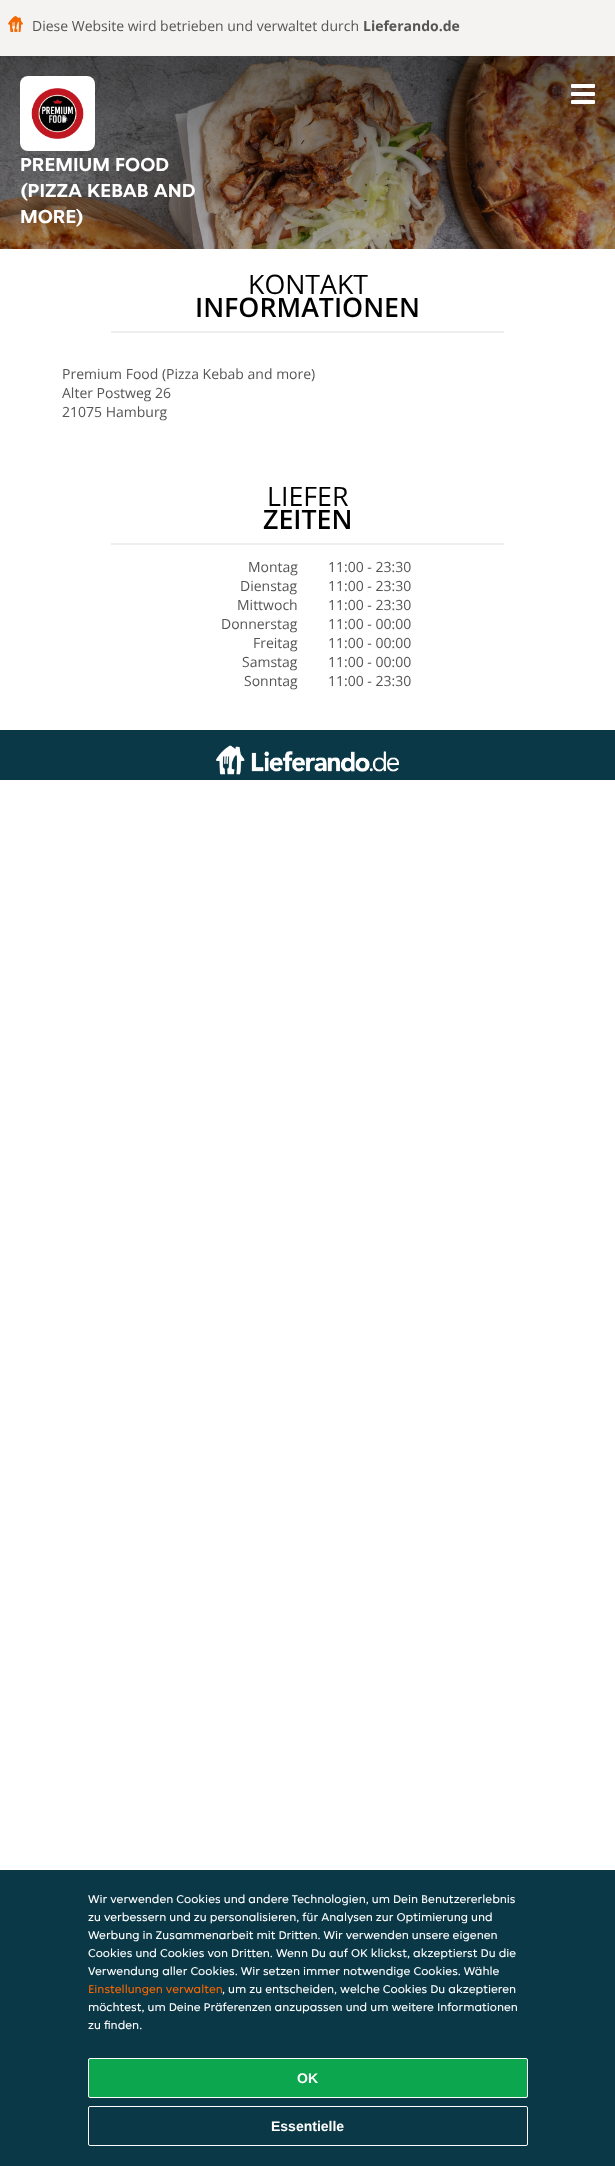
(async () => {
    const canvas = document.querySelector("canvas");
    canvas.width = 615;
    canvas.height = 2166;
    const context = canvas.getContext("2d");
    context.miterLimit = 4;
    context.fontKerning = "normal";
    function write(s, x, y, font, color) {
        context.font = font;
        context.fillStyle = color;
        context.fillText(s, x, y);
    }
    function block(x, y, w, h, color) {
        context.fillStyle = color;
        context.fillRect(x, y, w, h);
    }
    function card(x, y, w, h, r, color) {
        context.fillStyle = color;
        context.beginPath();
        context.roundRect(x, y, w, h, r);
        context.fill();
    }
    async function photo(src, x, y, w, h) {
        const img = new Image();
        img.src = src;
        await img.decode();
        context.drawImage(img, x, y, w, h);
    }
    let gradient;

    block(0, 0, 615, 2166, "rgb(255, 255, 255)");
    block(0, 0, 615, 56, "rgb(245, 243, 241)");
    await photo("media/1.png", 8, 16, 15, 16);
    write("Diese Website wird betrieben und verwaltet durch", 32, 31, "14px Open Sans", "rgb(85, 85, 85)");
    write("Lieferando.de", 363, 31, "bold 14px Open Sans", "rgb(85, 85, 85)");
    await photo("media/2.png", 0, 56, 615, 193);
    gradient = context.createLinearGradient(307, 0, 308, 500);
    gradient.addColorStop(0, "rgba(0, 0, 0, 0.7)");
    gradient.addColorStop(0.33, "rgba(0, 0, 0, 0.4)");
    gradient.addColorStop(0.67, "rgba(0, 0, 0, 0.2)");
    gradient.addColorStop(1, "rgba(0, 0, 0, 0)");
    context.fillStyle = gradient;
    context.fillRect(0, 56, 615, 193);
    await photo("media/3.png", 571, 84, 24, 20);
    card(20, 76, 75, 75, 8, "rgb(255, 255, 255)");
    await photo("media/4.png", 31, 88, 53, 51);
    write("PREMIUM FOOD", 20, 171, "bold 20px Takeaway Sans", "rgb(255, 255, 255)");
    write("(PIZZA KEBAB AND", 20, 197, "bold 20px Takeaway Sans", "rgb(255, 255, 255)");
    write("MORE)", 20, 223, "bold 20px Takeaway Sans", "rgb(255, 255, 255)");
    write("KONTAKT", 248, 294, "26.75px Open Sans", "rgb(0, 0, 0)");
    write("INFORMATIONEN", 195, 317, "600 26.75px Open Sans", "rgb(0, 0, 0)");
    block(111, 331, 393, 2, "rgb(238, 238, 238)");
    write("Premium Food (Pizza Kebab and more)", 62, 379, "14px Open Sans", "rgb(85, 85, 85)");
    write("Alter Postweg 26", 62, 398, "14px Open Sans", "rgb(85, 85, 85)");
    write("21075 Hamburg", 62, 417, "14px Open Sans", "rgb(85, 85, 85)");
    write("LIEFER", 267, 506, "26.75px Open Sans", "rgb(0, 0, 0)");
    write("ZEITEN", 263, 529, "600 26.75px Open Sans", "rgb(0, 0, 0)");
    block(111, 543, 393, 2, "rgb(238, 238, 238)");
    write("Montag", 248, 572, "14px Open Sans", "rgb(85, 85, 85)");
    write("11:00 - 23:30", 328, 572, "14px Open Sans", "rgb(85, 85, 85)");
    write("Dienstag", 240, 591, "14px Open Sans", "rgb(85, 85, 85)");
    write("11:00 - 23:30", 328, 591, "14px Open Sans", "rgb(85, 85, 85)");
    write("Mittwoch", 237, 610, "14px Open Sans", "rgb(85, 85, 85)");
    write("11:00 - 23:30", 328, 610, "14px Open Sans", "rgb(85, 85, 85)");
    write("Donnerstag", 221, 629, "14px Open Sans", "rgb(85, 85, 85)");
    write("11:00 - 00:00", 328, 629, "14px Open Sans", "rgb(85, 85, 85)");
    write("Freitag", 253, 648, "14px Open Sans", "rgb(85, 85, 85)");
    write("11:00 - 00:00", 328, 648, "14px Open Sans", "rgb(85, 85, 85)");
    write("Samstag", 242, 667, "14px Open Sans", "rgb(85, 85, 85)");
    write("11:00 - 00:00", 328, 667, "14px Open Sans", "rgb(85, 85, 85)");
    write("Sonntag", 244, 686, "14px Open Sans", "rgb(85, 85, 85)");
    write("11:00 - 23:30", 328, 686, "14px Open Sans", "rgb(85, 85, 85)");
    block(0, 730, 615, 50, "rgb(10, 56, 71)");
    await photo("media/5.png", 216, 745, 183, 30);
    block(0, 1870, 615, 296, "rgb(10, 56, 71)");
    write("Wir verwenden Cookies und andere Technologien, um Dein Benutzererlebnis", 88, 1903, "12px Takeaway Sans", "rgb(255, 255, 255)");
    write("zu verbessern und zu personalisieren, für Analysen zur Optimierung und", 88, 1921, "12px Takeaway Sans", "rgb(255, 255, 255)");
    write("Werbung in Zusammenarbeit mit Dritten. Wir verwenden unsere eigenen", 88, 1939, "12px Takeaway Sans", "rgb(255, 255, 255)");
    write("Cookies und Cookies von Dritten. Wenn Du auf OK klickst, akzeptierst Du die", 88, 1957, "12px Takeaway Sans", "rgb(255, 255, 255)");
    write("Verwendung aller Cookies. Wir setzen immer notwendige Cookies. Wähle", 88, 1975, "12px Takeaway Sans", "rgb(255, 255, 255)");
    write("Einstellungen verwalten", 88, 1993, "12px Takeaway Sans", "rgb(248, 102, 0)");
    write(", um zu entscheiden, welche Cookies Du akzeptieren", 222, 1993, "12px Takeaway Sans", "rgb(255, 255, 255)");
    write("möchtest, um Deine Präferenzen anzupassen und um weitere Informationen", 88, 2011, "12px Takeaway Sans", "rgb(255, 255, 255)");
    write("zu finden.", 88, 2029, "12px Takeaway Sans", "rgb(255, 255, 255)");
    context.fillStyle = "rgb(12, 166, 79)";
    context.beginPath();
    context.roundRect(88.5, 2058.5, 439, 39, 1.5);
    context.fill();
    context.strokeStyle = "rgb(255, 255, 255)";
    context.stroke();
    write("OK", 297, 2083, "bold 14px Liberation Sans", "rgb(255, 255, 255)");
    context.beginPath();
    context.roundRect(88.5, 2106.5, 439, 39, 1.5);
    context.stroke();
    write("Essentielle", 271, 2131, "bold 14px Liberation Sans", "rgb(255, 255, 255)");
})();
